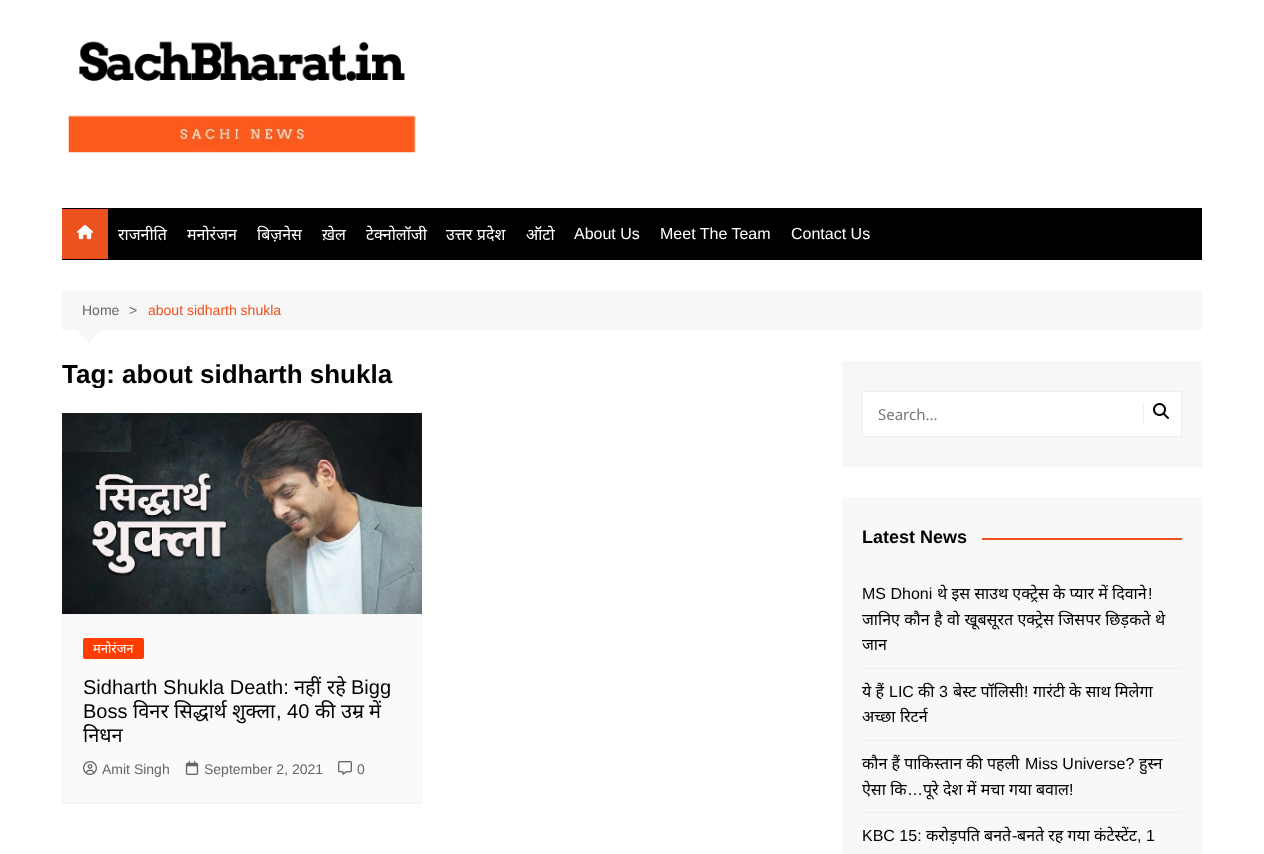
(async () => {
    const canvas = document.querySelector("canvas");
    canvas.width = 1264;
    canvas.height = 854;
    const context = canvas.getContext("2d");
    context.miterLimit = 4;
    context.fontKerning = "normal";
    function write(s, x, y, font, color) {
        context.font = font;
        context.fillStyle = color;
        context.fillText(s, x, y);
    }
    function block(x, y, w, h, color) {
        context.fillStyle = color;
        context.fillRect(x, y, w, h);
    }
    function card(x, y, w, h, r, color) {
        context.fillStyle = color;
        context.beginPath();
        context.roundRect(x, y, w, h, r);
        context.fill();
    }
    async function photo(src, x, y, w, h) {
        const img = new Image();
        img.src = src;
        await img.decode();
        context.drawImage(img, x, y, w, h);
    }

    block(0, 0, 1264, 854, "rgb(255, 255, 255)");
    await photo("media/1.png", 68, 41, 348, 112);
    block(62, 208, 1140, 52, "rgb(0, 0, 0)");
    block(62, 209, 46, 50, "rgb(236, 82, 30)");
    await photo("media/2.png", 77, 224, 16, 16);
    write("राजनीति", 118, 240, "16px Noto Sans", "rgb(255, 255, 255)");
    write("मनोरंजन", 187, 240, "16px Noto Sans", "rgb(255, 255, 255)");
    write("बिज़नेस", 257, 240, "16px Noto Sans", "rgb(255, 255, 255)");
    write("ख़ेल", 322, 240, "16px Noto Sans", "rgb(255, 255, 255)");
    write("टेक्नोलॉजी", 366, 240, "16px Noto Sans", "rgb(255, 255, 255)");
    context.wordSpacing = "0.25px";
    write("उत्तर प्रदेश", 446, 240, "16px Noto Sans", "rgb(255, 255, 255)");
    context.wordSpacing = "0px";
    write("ऑटो", 526, 240, "16px Noto Sans", "rgb(255, 255, 255)");
    write("About Us", 574, 239, "16px Liberation Sans", "rgb(255, 255, 255)");
    write("Meet The Team", 660, 239, "16px Liberation Sans", "rgb(255, 255, 255)");
    write("Contact Us", 791, 239, "16px Liberation Sans", "rgb(255, 255, 255)");
    block(62, 290, 1140, 40, "rgb(247, 247, 247)");
    write("Home", 82, 315, "14px Liberation Sans", "rgb(102, 102, 102)");
    write(">", 129, 315, "14px Liberation Sans", "rgb(102, 102, 102)");
    write("about sidharth shukla", 148, 315, "14px Liberation Sans", "rgb(236, 82, 30)");
    context.fillStyle = "rgb(247, 247, 247)";
    context.beginPath();
    context.moveTo(77, 330);
    context.lineTo(101, 330);
    context.lineTo(89, 343);
    context.closePath();
    context.fill();
    context.save();
    context.beginPath();
    context.rect(62, 360, 750, 28);
    context.clip();
    write("Tag:", 62, 383, "bold 26px Liberation Sans", "rgb(1, 1, 1)");
    context.restore();
    write("about sidharth shukla", 122, 383, "bold 26px Liberation Sans", "rgb(1, 1, 1)");
    await photo("media/3.png", 62, 413, 360, 201);
    context.fillStyle = "rgb(250, 250, 250)";
    context.beginPath();
    context.rect(62.5, 614.5, 359, 189);
    context.fill();
    context.strokeStyle = "rgb(243, 243, 243)";
    context.stroke();
    card(83, 638, 61, 21, 2, "rgb(255, 61, 0)");
    write("मनोरंजन", 93, 653, "13px Noto Sans", "rgb(255, 255, 255)");
    write("Sidharth Shukla Death:", 83, 694, "20px Liberation Sans", "rgb(1, 1, 1)");
    write("नहीं", 294, 694, "20px Noto Sans", "rgb(1, 1, 1)");
    write("रहे", 327, 694, "20px Noto Sans", "rgb(1, 1, 1)");
    write("Bigg", 351, 694, "20px Liberation Sans", "rgb(1, 1, 1)");
    write("Boss", 83, 718, "20px Liberation Sans", "rgb(1, 1, 1)");
    write("विनर", 133, 718, "20px Noto Sans", "rgb(1, 1, 1)");
    write("सिद्धार्थ", 174, 718, "20px Noto Sans", "rgb(1, 1, 1)");
    write("शुक्ला", 232, 718, "20px Noto Sans", "rgb(1, 1, 1)");
    write(", 40", 276, 718, "20px Liberation Sans", "rgb(1, 1, 1)");
    write("की", 315, 718, "20px Noto Sans", "rgb(1, 1, 1)");
    write("उम्र", 341, 718, "20px Noto Sans", "rgb(1, 1, 1)");
    write("में", 369, 718, "20px Noto Sans", "rgb(1, 1, 1)");
    write("निधन", 83, 742, "20px Noto Sans", "rgb(1, 1, 1)");
    await photo("media/4.png", 83, 761, 14, 14);
    write("Amit Singh", 102, 774, "14px Liberation Sans", "rgb(102, 102, 102)");
    await photo("media/5.png", 185, 761, 14, 14);
    write("September 2, 2021", 204, 774, "14px Liberation Sans", "rgb(102, 102, 102)");
    await photo("media/6.png", 338, 761, 14, 14);
    write("0", 357, 774, "14px Liberation Sans", "rgb(102, 102, 102)");
    block(842, 361, 360, 106, "rgb(247, 247, 247)");
    context.fillStyle = "rgb(255, 255, 255)";
    context.beginPath();
    context.rect(862.5, 391.5, 319, 45);
    context.fill();
    context.strokeStyle = "rgb(238, 238, 238)";
    context.stroke();
    write("Search...", 878, 420, "15px Noto Sans", "rgb(117, 117, 117)");
    block(1143, 404, 1, 20, "rgb(238, 238, 238)");
    await photo("media/7.png", 1153, 403, 16, 16);
    block(842, 497, 360, 357, "rgb(248, 248, 248)");
    write("Latest News", 862, 543, "bold 18px Liberation Sans", "rgb(1, 1, 1)");
    block(982, 538, 200, 2, "rgb(236, 82, 30)");
    block(862, 668, 320, 1, "rgb(238, 238, 238)");
    write("MS Dhoni", 862, 599, "16px Liberation Sans", "rgb(1, 1, 1)");
    write("थे इस साउथ एक्ट्रेस के प्यार में दिवाने", 937, 599, "16px Noto Sans", "rgb(1, 1, 1)");
    write("!", 1148, 599, "16px Liberation Sans", "rgb(1, 1, 1)");
    context.wordSpacing = "0.25px";
    write("जानिए कौन है वो खूबसूरत एक्ट्रेस जिसपर छिड़कते थे", 862, 625, "16px Noto Sans", "rgb(1, 1, 1)");
    context.wordSpacing = "0px";
    write("जान", 862, 650, "16px Noto Sans", "rgb(1, 1, 1)");
    block(862, 740, 320, 1, "rgb(238, 238, 238)");
    write("ये हैं", 862, 697, "16px Noto Sans", "rgb(1, 1, 1)");
    write("LIC", 889, 697, "16px Liberation Sans", "rgb(1, 1, 1)");
    write("की", 918, 697, "16px Noto Sans", "rgb(1, 1, 1)");
    write("3", 939, 697, "16px Liberation Sans", "rgb(1, 1, 1)");
    write("बेस्ट पॉलिसी", 953, 697, "16px Noto Sans", "rgb(1, 1, 1)");
    write("!", 1024, 697, "16px Liberation Sans", "rgb(1, 1, 1)");
    write("गारंटी के साथ मिलेगा", 1033, 697, "16px Noto Sans", "rgb(1, 1, 1)");
    context.wordSpacing = "0.25px";
    write("अच्छा रिटर्न", 862, 722, "16px Noto Sans", "rgb(1, 1, 1)");
    block(862, 812, 320, 1, "rgb(238, 238, 238)");
    context.wordSpacing = "0px";
    write("कौन हैं पाकिस्तान की पहली", 862, 769, "16px Noto Sans", "rgb(1, 1, 1)");
    write("Miss Universe?", 1025, 769, "16px Liberation Sans", "rgb(1, 1, 1)");
    write("हुस्न", 1139, 769, "16px Noto Sans", "rgb(1, 1, 1)");
    context.wordSpacing = "0.25px";
    write("ऐसा कि", 862, 795, "16px Noto Sans", "rgb(1, 1, 1)");
    context.wordSpacing = "0px";
    write("…", 907, 795, "16px Liberation Sans", "rgb(1, 1, 1)");
    context.wordSpacing = "0.25px";
    write("पूरे देश में मचा गया बवाल", 923, 795, "16px Noto Sans", "rgb(1, 1, 1)");
    context.wordSpacing = "0px";
    write("!", 1069, 795, "16px Liberation Sans", "rgb(1, 1, 1)");
    write("KBC 15:", 862, 841, "16px Liberation Sans", "rgb(1, 1, 1)");
    write("करोड़पति बनते", 926, 841, "16px Noto Sans", "rgb(1, 1, 1)");
    write("-", 1012, 841, "16px Liberation Sans", "rgb(1, 1, 1)");
    write("बनते रह गया कंटेस्टेंट", 1017, 841, "16px Noto Sans", "rgb(1, 1, 1)");
    write(", 1", 1137, 841, "16px Liberation Sans", "rgb(1, 1, 1)");
})();
